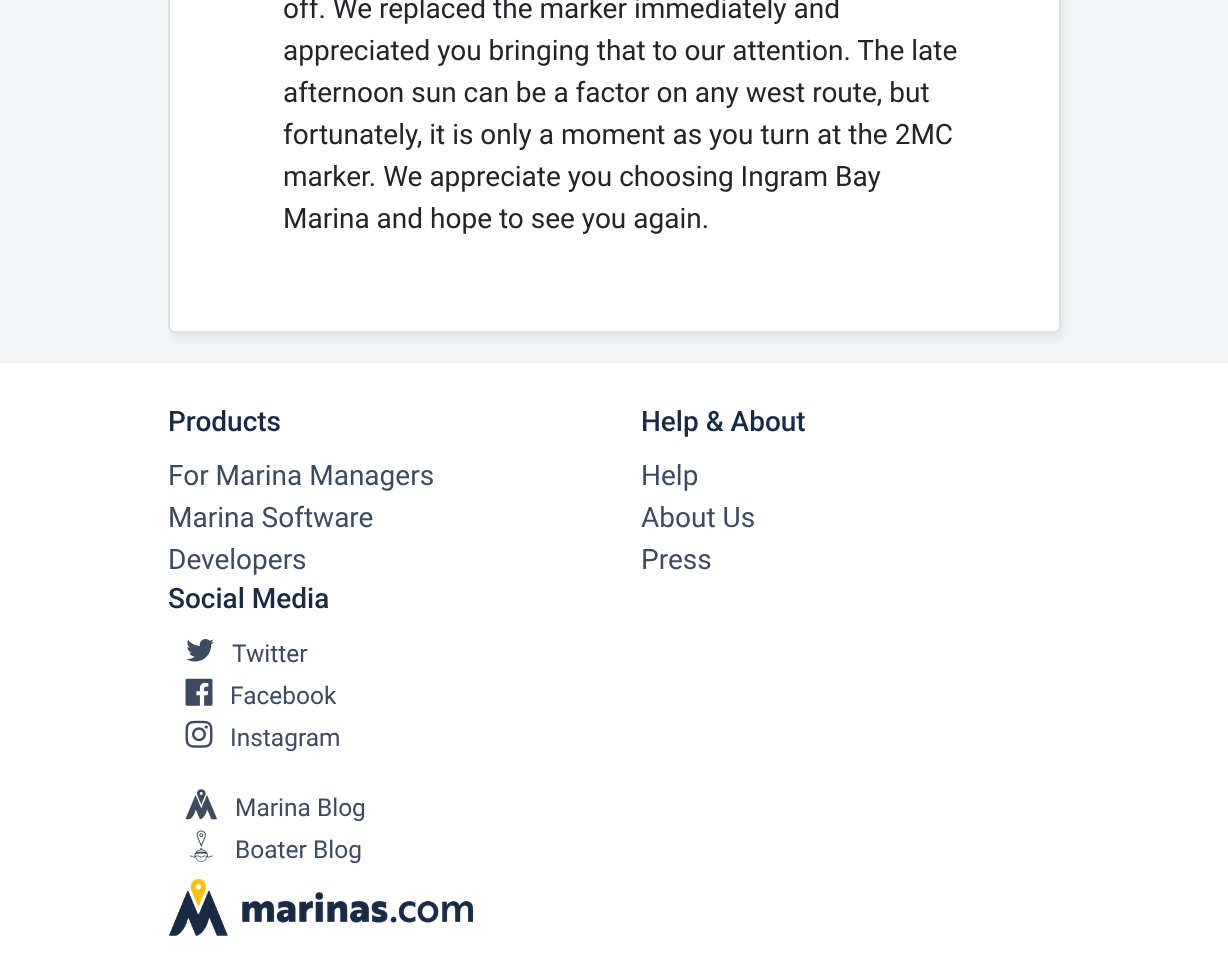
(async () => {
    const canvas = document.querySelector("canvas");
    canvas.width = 1228;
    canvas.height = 962;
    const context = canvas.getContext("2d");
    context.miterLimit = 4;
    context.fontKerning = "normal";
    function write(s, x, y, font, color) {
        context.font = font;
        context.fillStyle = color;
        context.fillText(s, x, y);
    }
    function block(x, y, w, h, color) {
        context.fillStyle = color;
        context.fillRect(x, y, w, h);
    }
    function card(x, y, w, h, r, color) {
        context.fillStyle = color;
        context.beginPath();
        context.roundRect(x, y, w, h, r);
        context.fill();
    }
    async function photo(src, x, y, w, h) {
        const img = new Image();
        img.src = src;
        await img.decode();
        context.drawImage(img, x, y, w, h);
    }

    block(0, 0, 1228, 962, "rgb(255, 255, 255)");
    block(0, 0, 1228, 361, "rgb(241, 245, 248)");
    context.fillStyle = "rgba(0, 0, 0, 0.05)";
    context.filter = "blur(3.5px)";
    context.beginPath();
    context.roundRect(172, -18, 892, 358, 7);
    context.fill();
    context.filter = "none";
    card(168, -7, 893, 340, 7, "rgb(255, 255, 255)");
    context.beginPath();
    context.roundRect(169, -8, 891, 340, 6);
    context.strokeStyle = "rgba(0, 0, 0, 0.12)";
    context.lineWidth = 2;
    context.stroke();
    write("off. We replaced the marker immediately and", 283, 18, "28px Roboto", "rgb(33, 37, 41)");
    write("appreciated you bringing that to our attention. The late", 283, 60, "28px Roboto", "rgb(33, 37, 41)");
    write("afternoon sun can be a factor on any west route, but", 283, 102, "28px Roboto", "rgb(33, 37, 41)");
    write("fortunately, it is only a moment as you turn at the 2MC", 283, 144, "28px Roboto", "rgb(33, 37, 41)");
    write("marker. We appreciate you choosing Ingram Bay", 283, 186, "28px Roboto", "rgb(33, 37, 41)");
    write("Marina and hope to see you again.", 283, 228, "28px Roboto", "rgb(33, 37, 41)");
    block(0, 361, 1228, 2, "rgb(238, 238, 238)");
    write("Products", 168, 431, "500 28px Roboto", "rgb(25, 43, 68)");
    write("For Marina Managers", 168, 485, "28px Roboto", "rgb(61, 75, 96)");
    write("Marina Software", 168, 527, "28px Roboto", "rgb(61, 75, 96)");
    write("Developers", 168, 569, "28px Roboto", "rgb(61, 75, 96)");
    write("Help & About", 641, 431, "500 28px Roboto", "rgb(25, 43, 68)");
    write("Help", 641, 485, "28px Roboto", "rgb(61, 75, 96)");
    write("About Us", 641, 527, "28px Roboto", "rgb(61, 75, 96)");
    write("Press", 641, 569, "28px Roboto", "rgb(61, 75, 96)");
    write("Social Media", 168, 608, "500 28px Roboto", "rgb(25, 43, 68)");
    await photo("media/1.png", 186, 639, 28, 23);
    write("Twitter", 232, 662, "24.5px Roboto", "rgb(61, 75, 96)");
    await photo("media/2.png", 185, 678, 28, 28);
    write("Facebook", 230, 704, "24.5px Roboto", "rgb(61, 75, 96)");
    await photo("media/3.png", 185, 720, 28, 28);
    write("Instagram", 230, 746, "24.5px Roboto", "rgb(61, 75, 96)");
    await photo("media/4.png", 185, 789, 32, 31);
    write("Marina Blog", 235, 816, "24.5px Roboto", "rgb(61, 75, 96)");
    await photo("media/5.png", 189, 830, 24, 32);
    write("Boater Blog", 235, 858, "24.5px Roboto", "rgb(61, 75, 96)");
    await photo("media/6.png", 169, 878, 305, 58);
})();
